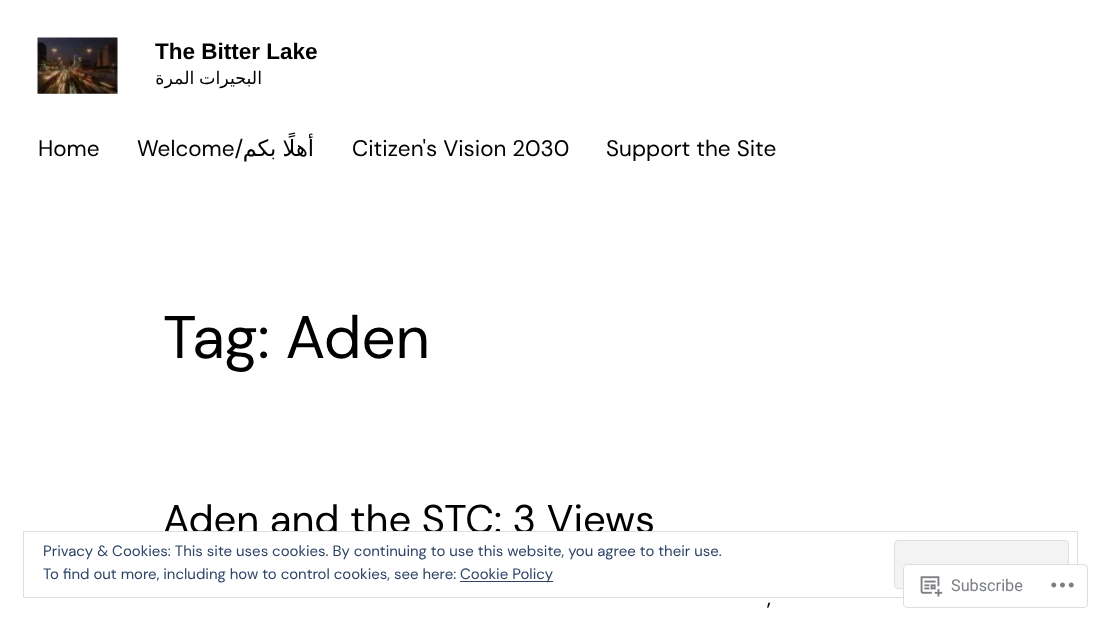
(async () => {
    const canvas = document.querySelector("canvas");
    canvas.width = 1099;
    canvas.height = 619;
    const context = canvas.getContext("2d");
    context.miterLimit = 4;
    context.fontKerning = "normal";
    function write(s, x, y, font, color) {
        context.font = font;
        context.fillStyle = color;
        context.fillText(s, x, y);
    }
    function block(x, y, w, h, color) {
        context.fillStyle = color;
        context.fillRect(x, y, w, h);
    }
    function card(x, y, w, h, r, color) {
        context.fillStyle = color;
        context.beginPath();
        context.roundRect(x, y, w, h, r);
        context.fill();
    }
    async function photo(src, x, y, w, h) {
        const img = new Image();
        img.src = src;
        await img.decode();
        context.drawImage(img, x, y, w, h);
    }

    block(0, 0, 1099, 619, "rgb(255, 255, 255)");
    await photo("media/1.png", 37, 37, 81, 57);
    write("The Bitter Lake", 155, 59, "bold 22.5px Liberation Sans", "rgb(0, 0, 0)");
    context.wordSpacing = "-1px";
    context.direction = "rtl";
    write("البحيرات المرة", 262, 84, "17.5px DejaVu Sans", "rgb(0, 0, 0)");
    context.wordSpacing = "0px";
    context.direction = "ltr";
    write("Home", 38, 156, "22.5px DM Sans", "rgb(0, 0, 0)");
    write("Welcome/", 137, 156, "22.5px DM Sans", "rgb(0, 0, 0)");
    context.wordSpacing = "-1px";
    context.direction = "rtl";
    write("أهلًا بكم", 314, 156, "22.5px DejaVu Sans", "rgb(0, 0, 0)");
    context.wordSpacing = "0px";
    context.direction = "ltr";
    write("Citizen's Vision 2030", 352, 156, "22.5px DM Sans", "rgb(0, 0, 0)");
    write("Support the Site", 606, 156, "22.5px DM Sans", "rgb(0, 0, 0)");
    write("Tag: Aden", 163, 358, "60px DM Sans", "rgb(0, 0, 0)");
    write("Aden and the STC: 3 Views", 163, 533, "40px DM Sans", "rgb(0, 0, 0)");
    write(",", 767, 605, "22.5px DM Sans", "rgb(0, 0, 0)");
    block(163, 532, 487, 2, "rgb(255, 255, 255)");
    context.strokeStyle = "rgb(222, 222, 222)";
    context.strokeRect(23.5, 531.5, 1054, 66);
    write("Privacy & Cookies: This site uses cookies. By continuing to use this website, you agree to their use.", 43, 556, "15px DM Sans", "rgb(46, 68, 103)");
    context.fillStyle = "rgb(243, 243, 243)";
    context.beginPath();
    context.roundRect(894.5, 540.5, 174, 48, 3.5);
    context.fill();
    context.stroke();
    write("To find out more, including how to control cookies, see here:", 43, 579, "15px DM Sans", "rgb(46, 68, 103)");
    block(460, 581, 93, 1, "rgb(46, 68, 103)");
    write("Cookie Policy", 460, 579, "15px DM Sans", "rgb(46, 68, 103)");
    card(903, 564, 185, 44, 4, "rgba(255, 255, 255, 0.98)");
    context.beginPath();
    context.roundRect(903.5, 564.5, 184, 43, 3.5);
    context.strokeStyle = "rgba(220, 220, 222, 0.98)";
    context.stroke();
    await photo("media/2.png", 920, 576, 23, 21);
    write("Subscribe", 951, 591, "16.25px Roboto", "rgb(123, 127, 132)");
    await photo("media/3.png", 1051, 582, 23, 6);
})();
